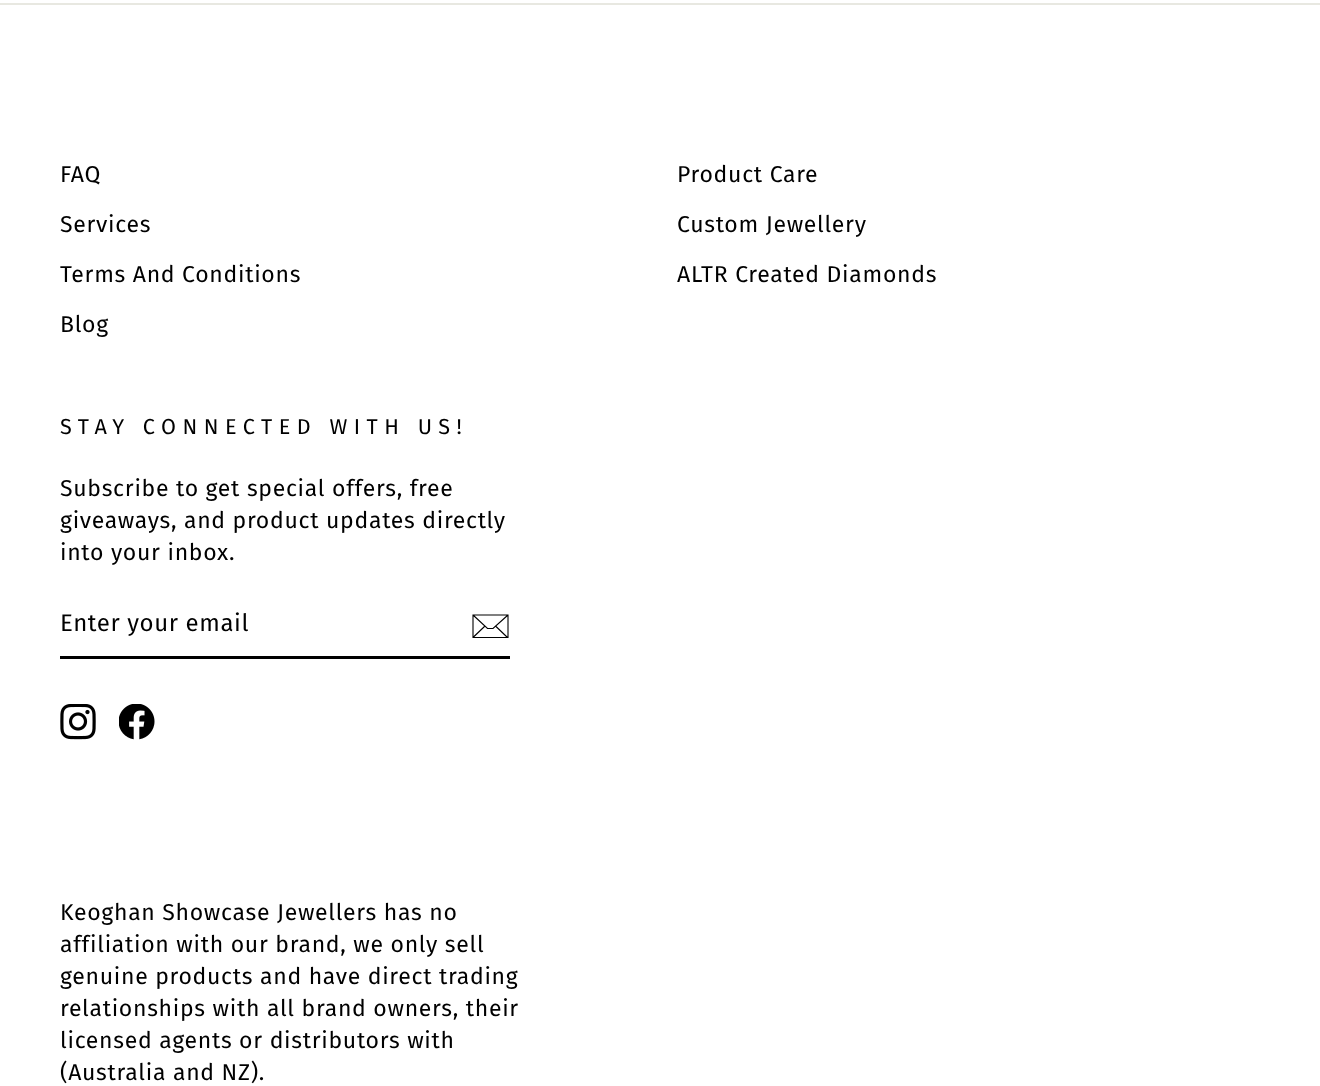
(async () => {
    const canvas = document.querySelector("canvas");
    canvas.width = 1320;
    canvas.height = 1086;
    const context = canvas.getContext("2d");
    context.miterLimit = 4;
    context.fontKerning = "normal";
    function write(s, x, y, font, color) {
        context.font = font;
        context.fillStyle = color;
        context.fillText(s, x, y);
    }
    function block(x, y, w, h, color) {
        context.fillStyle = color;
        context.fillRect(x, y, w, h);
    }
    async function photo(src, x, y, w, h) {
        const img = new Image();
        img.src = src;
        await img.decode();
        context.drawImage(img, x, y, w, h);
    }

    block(0, 0, 1320, 1086, "rgb(255, 255, 255)");
    block(0, 3, 1320, 2, "rgb(232, 232, 225)");
    context.letterSpacing = "0.7px";
    write("FAQ", 60, 182, "23px Fira Sans", "rgb(0, 0, 0)");
    write("Services", 60, 232, "23px Fira Sans", "rgb(0, 0, 0)");
    write("Terms And Conditions", 60, 282, "23px Fira Sans", "rgb(0, 0, 0)");
    write("Blog", 60, 332, "23px Fira Sans", "rgb(0, 0, 0)");
    write("Product Care", 677, 182, "23px Fira Sans", "rgb(0, 0, 0)");
    write("Custom Jewellery", 677, 232, "23px Fira Sans", "rgb(0, 0, 0)");
    write("ALTR Created Diamonds", 677, 282, "23px Fira Sans", "rgb(0, 0, 0)");
    context.letterSpacing = "6.5px";
    write("STAY CONNECTED WITH US!", 60, 434, "21.6px Fira Sans", "rgb(0, 0, 0)");
    context.letterSpacing = "0.7px";
    write("Subscribe to get special offers, free", 60, 496, "23px Fira Sans", "rgb(0, 0, 0)");
    write("giveaways, and product updates directly", 60, 528, "23px Fira Sans", "rgb(0, 0, 0)");
    write("into your inbox.", 60, 560, "23px Fira Sans", "rgb(0, 0, 0)");
    block(60, 656, 450, 3, "rgb(0, 0, 0)");
    context.letterSpacing = "0.6px";
    write("Enter your email", 60, 631, "24px Fira Sans", "rgb(0, 0, 0)");
    context.beginPath();
    context.moveTo(508, 637.5);
    context.lineTo(473, 637.5);
    context.lineTo(473, 615);
    context.lineTo(508, 615);
    context.closePath();
    context.moveTo(473, 615);
    context.lineTo(487.5, 628.5);
    context.lineTo(493, 628.5);
    context.lineTo(508, 615);
    context.moveTo(485, 626);
    context.lineTo(473.5, 637);
    context.moveTo(507.5, 637.5);
    context.lineTo(495.5, 626);
    context.strokeStyle = "rgb(0, 0, 0)";
    context.lineWidth = 1.1;
    context.stroke();
    await photo("media/1.png", 60, 704, 36, 36);
    await photo("media/2.png", 119, 704, 36, 36);
    context.letterSpacing = "0.7px";
    write("Keoghan Showcase Jewellers has no", 60, 920, "23px Fira Sans", "rgb(0, 0, 0)");
    write("affiliation with our brand, we only sell", 60, 952, "23px Fira Sans", "rgb(0, 0, 0)");
    write("genuine products and have direct trading", 60, 984, "23px Fira Sans", "rgb(0, 0, 0)");
    write("relationships with all brand owners, their", 60, 1016, "23px Fira Sans", "rgb(0, 0, 0)");
    write("licensed agents or distributors with", 60, 1048, "23px Fira Sans", "rgb(0, 0, 0)");
    write("(Australia and NZ).", 60, 1080, "23px Fira Sans", "rgb(0, 0, 0)");
})();
